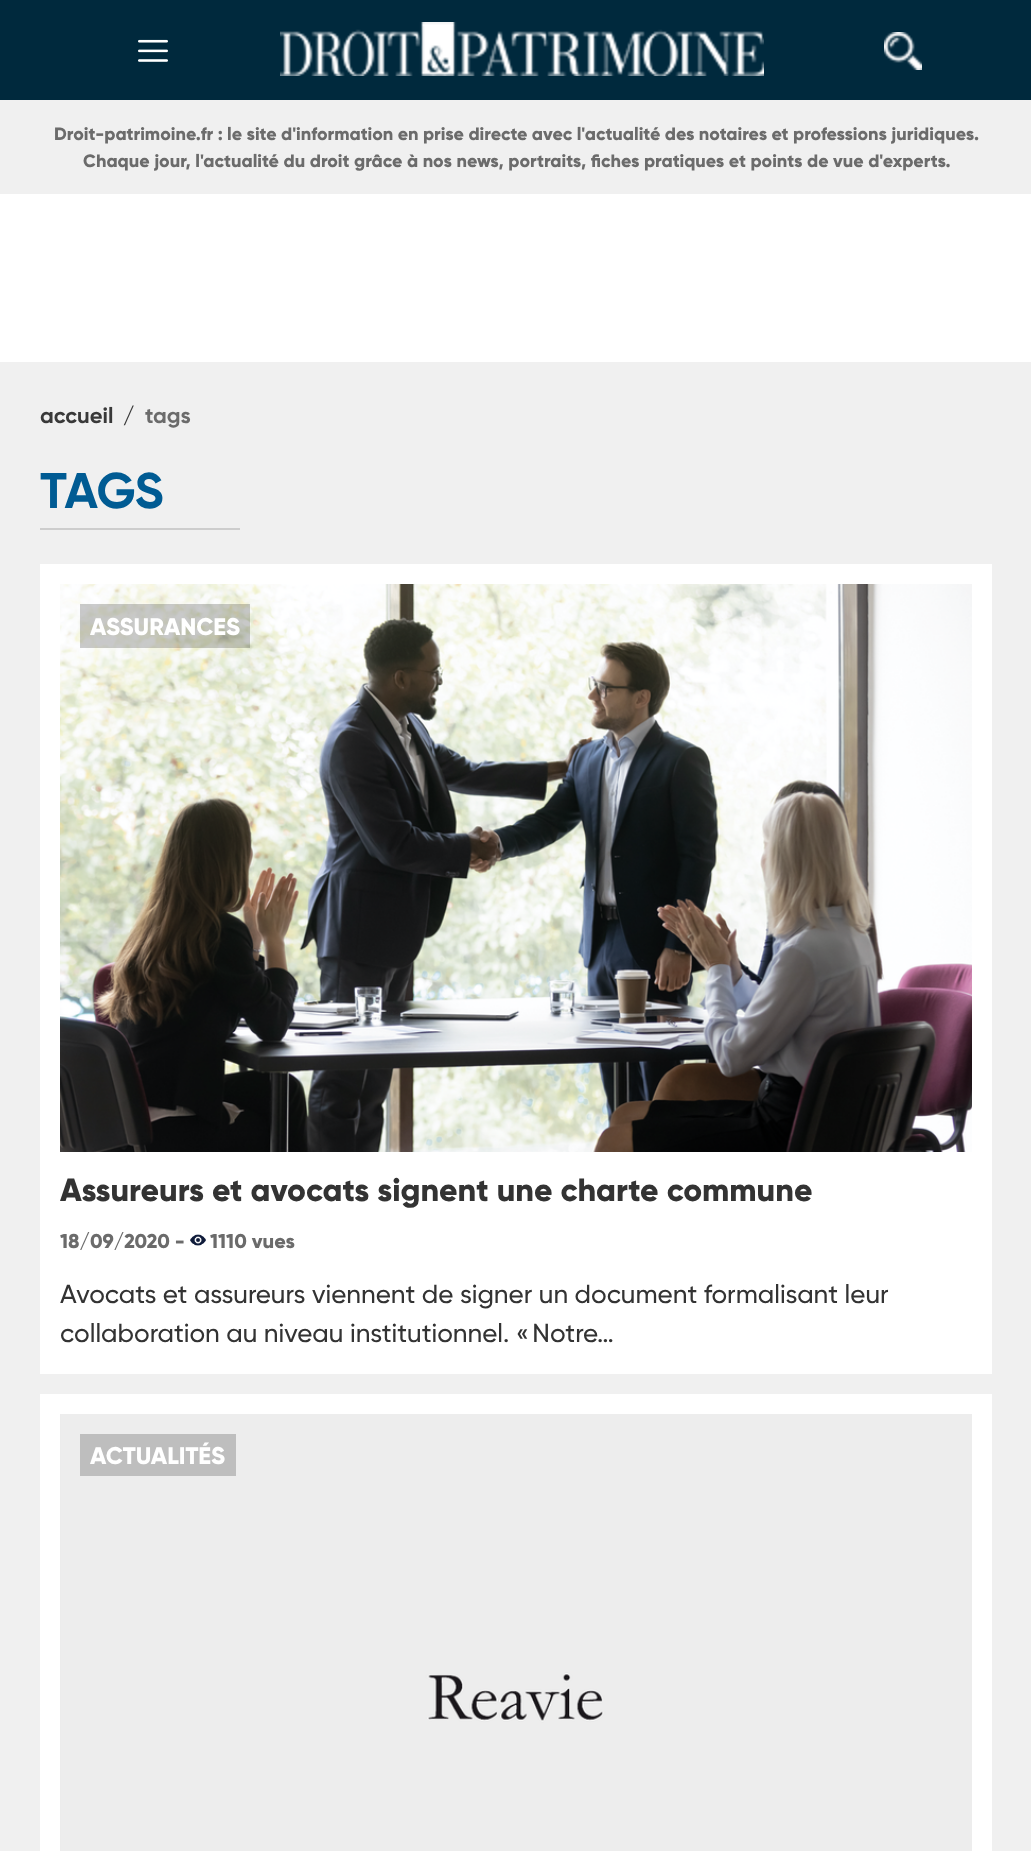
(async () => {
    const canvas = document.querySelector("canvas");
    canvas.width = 1031;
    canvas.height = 1851;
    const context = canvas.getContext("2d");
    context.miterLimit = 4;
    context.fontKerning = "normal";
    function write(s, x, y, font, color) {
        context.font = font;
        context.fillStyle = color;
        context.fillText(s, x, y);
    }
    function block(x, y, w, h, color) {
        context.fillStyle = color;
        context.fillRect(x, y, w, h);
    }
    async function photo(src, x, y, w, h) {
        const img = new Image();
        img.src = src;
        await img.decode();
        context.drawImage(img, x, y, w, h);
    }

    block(0, 0, 1031, 1851, "rgb(255, 255, 255)");
    block(0, 0, 1031, 100, "rgb(0, 41, 61)");
    await photo("media/1.png", 138, 39, 30, 23);
    await photo("media/2.png", 280, 22, 484, 54);
    await photo("media/3.png", 884, 32, 38, 38);
    block(0, 100, 1031, 94, "rgb(240, 240, 240)");
    context.wordSpacing = "-0.1px";
    write("Droit-patrimoine.fr : le site d'information en prise directe avec l'actualité des notaires et professions juridiques.", 54, 140, "800 17.98px Gilroy", "rgb(107, 107, 107)");
    context.wordSpacing = "0px";
    write("Chaque jour, l'actualité du droit grâce à nos news, portraits, fiches pratiques et points de vue d'experts.", 83, 167, "800 17.98px Gilroy", "rgb(107, 107, 107)");
    block(0, 362, 1031, 1489, "rgb(240, 240, 240)");
    write("accueil", 40, 423, "bold 22px Gilroy", "rgb(57, 57, 57)");
    write("/", 123, 423, "bold 22px Gilroy", "rgb(57, 57, 57)");
    write("tags", 145, 423, "bold 22px Gilroy", "rgb(107, 107, 107)");
    write("TAGS", 40, 508, "bold 50px Gilroy", "rgb(0, 91, 147)");
    block(40, 528, 200, 2, "rgb(205, 205, 205)");
    block(40, 564, 952, 810, "rgb(255, 255, 255)");
    await photo("media/4.png", 60, 584, 912, 568);
    block(80, 604, 170, 44, "rgba(0, 0, 0, 0.2)");
    write("ASSURANCES", 90, 635, "800 24px Gilroy", "rgb(255, 255, 255)");
    write("Assureurs et avocats signent une charte commune", 60, 1201, "800 32px Gilroy", "rgb(51, 51, 51)");
    write("18/09/2020 -", 60, 1248, "800 20px Gilroy", "rgb(107, 107, 107)");
    await photo("media/5.png", 190, 1234, 16, 12);
    write("1110 vues", 210, 1248, "800 20px Gilroy", "rgb(107, 107, 107)");
    write("Avocats et assureurs viennent de signer un document formalisant leur", 60, 1303, "500 26px Gilroy", "rgb(51, 51, 51)");
    write("collaboration au niveau institutionnel. « Notre…", 60, 1342, "500 26px Gilroy", "rgb(51, 51, 51)");
    block(40, 1394, 952, 457, "rgb(255, 255, 255)");
    await photo("media/6.png", 60, 1414, 912, 437);
    block(80, 1434, 156, 42, "rgb(190, 190, 190)");
    write("ACTUALITÉS", 90, 1464, "800 24px Gilroy", "rgb(255, 255, 255)");
})();
